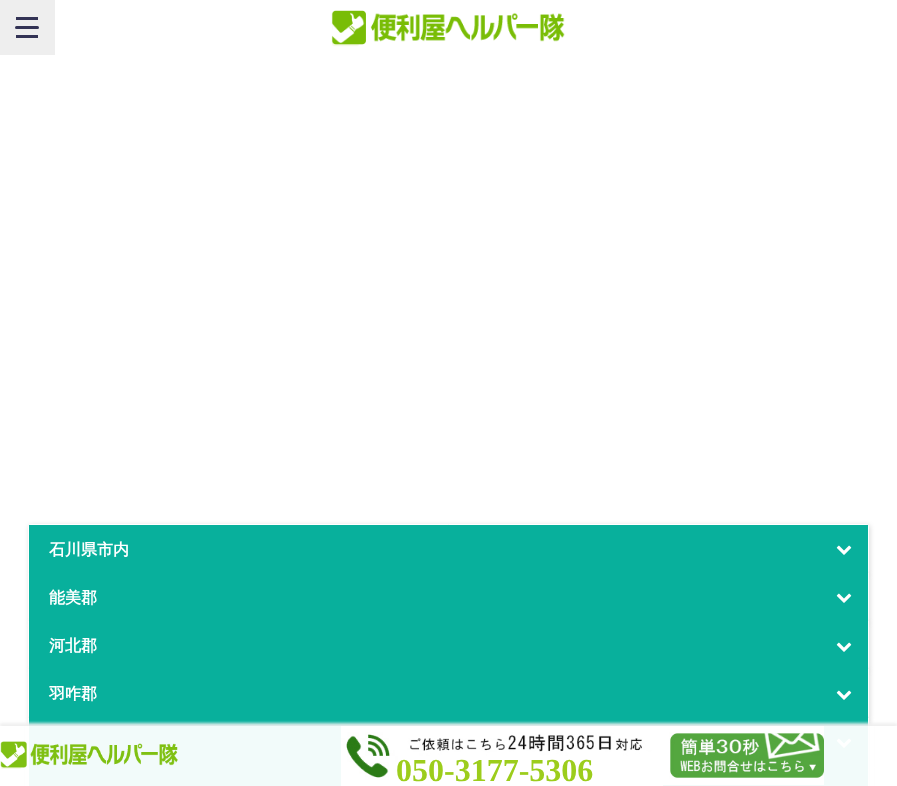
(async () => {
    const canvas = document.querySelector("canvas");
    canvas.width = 897;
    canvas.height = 786;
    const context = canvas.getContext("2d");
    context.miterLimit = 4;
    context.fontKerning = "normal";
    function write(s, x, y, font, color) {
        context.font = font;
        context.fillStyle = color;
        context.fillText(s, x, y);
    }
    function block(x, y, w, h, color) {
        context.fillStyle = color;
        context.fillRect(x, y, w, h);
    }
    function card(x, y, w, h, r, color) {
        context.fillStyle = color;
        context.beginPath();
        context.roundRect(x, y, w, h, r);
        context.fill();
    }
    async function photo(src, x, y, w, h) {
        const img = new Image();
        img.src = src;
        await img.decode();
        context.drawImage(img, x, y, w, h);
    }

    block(0, 0, 897, 786, "rgb(255, 255, 255)");
    block(0, 0, 55, 55, "rgb(238, 238, 238)");
    block(16, 17, 22, 3, "rgb(51, 51, 85)");
    card(15, 26, 24, 3, 1.5, "rgb(51, 51, 85)");
    block(16, 35, 22, 3, "rgb(51, 51, 85)");
    await photo("media/1.png", 331, 10, 234, 37);
    context.fillStyle = "rgba(0, 0, 0, 0.15)";
    context.filter = "blur(2.5px)";
    context.beginPath();
    context.roundRect(29, 525, 841, 51, 3);
    context.fill();
    context.filter = "none";
    context.beginPath();
    context.roundRect(28.5, 524.5, 840, 50, [2.5, 2.5, 0, 0]);
    context.strokeStyle = "rgb(255, 255, 255)";
    context.stroke();
    context.filter = "blur(2.5px)";
    context.beginPath();
    context.roundRect(29, 574, 841, 50, 3);
    context.fill();
    context.filter = "none";
    context.fillStyle = "rgb(255, 255, 255)";
    context.beginPath();
    context.moveTo(28, 573);
    context.lineTo(869, 573);
    context.lineTo(869, 620);
    context.bezierCurveTo(869, 622, 868, 623, 866, 623);
    context.lineTo(31, 623);
    context.bezierCurveTo(29, 623, 28, 622, 28, 620);
    context.closePath();
    context.moveTo(29, 573);
    context.lineTo(868, 573);
    context.lineTo(868, 620);
    context.bezierCurveTo(868, 621, 867, 622, 866, 622);
    context.lineTo(31, 622);
    context.bezierCurveTo(30, 622, 29, 621, 29, 620);
    context.closePath();
    context.fill("evenodd");
    context.fillStyle = "rgba(0, 0, 0, 0.15)";
    context.filter = "blur(2.5px)";
    context.beginPath();
    context.roundRect(29, 622, 841, 50, 3);
    context.fill();
    context.filter = "none";
    context.fillStyle = "rgb(255, 255, 255)";
    context.beginPath();
    context.moveTo(28, 621);
    context.lineTo(869, 621);
    context.lineTo(869, 668);
    context.bezierCurveTo(869, 670, 868, 671, 866, 671);
    context.lineTo(31, 671);
    context.bezierCurveTo(29, 671, 28, 670, 28, 668);
    context.closePath();
    context.moveTo(29, 621);
    context.lineTo(868, 621);
    context.lineTo(868, 668);
    context.bezierCurveTo(868, 669, 867, 670, 866, 670);
    context.lineTo(31, 670);
    context.bezierCurveTo(30, 670, 29, 669, 29, 668);
    context.closePath();
    context.fill("evenodd");
    context.fillStyle = "rgba(0, 0, 0, 0.15)";
    context.filter = "blur(2.5px)";
    context.beginPath();
    context.roundRect(29, 670, 841, 50, 3);
    context.fill();
    context.filter = "none";
    context.fillStyle = "rgb(255, 255, 255)";
    context.beginPath();
    context.moveTo(28, 669);
    context.lineTo(869, 669);
    context.lineTo(869, 716);
    context.bezierCurveTo(869, 718, 868, 719, 866, 719);
    context.lineTo(31, 719);
    context.bezierCurveTo(29, 719, 28, 718, 28, 716);
    context.closePath();
    context.moveTo(29, 669);
    context.lineTo(868, 669);
    context.lineTo(868, 716);
    context.bezierCurveTo(868, 717, 867, 718, 866, 718);
    context.lineTo(31, 718);
    context.bezierCurveTo(30, 718, 29, 717, 29, 716);
    context.closePath();
    context.fill("evenodd");
    context.fillStyle = "rgba(0, 0, 0, 0.15)";
    context.filter = "blur(2.5px)";
    context.beginPath();
    context.roundRect(29, 719, 841, 49, 3);
    context.fill();
    context.filter = "none";
    context.fillStyle = "rgb(255, 255, 255)";
    context.beginPath();
    context.moveTo(28, 718);
    context.lineTo(869, 718);
    context.lineTo(869, 764);
    context.bezierCurveTo(869, 766, 868, 767, 866, 767);
    context.lineTo(31, 767);
    context.bezierCurveTo(29, 767, 28, 766, 28, 764);
    context.closePath();
    context.moveTo(29, 718);
    context.lineTo(868, 718);
    context.lineTo(868, 764);
    context.bezierCurveTo(868, 765, 867, 766, 866, 766);
    context.lineTo(31, 766);
    context.bezierCurveTo(30, 766, 29, 765, 29, 764);
    context.closePath();
    context.fill("evenodd");
    context.fillStyle = "rgba(0, 0, 0, 0.15)";
    context.filter = "blur(2.5px)";
    context.beginPath();
    context.roundRect(29, 767, 841, 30, 3);
    context.fill();
    context.filter = "none";
    block(28, 766, 841, 20, "rgb(255, 255, 255)");
    block(29, 525, 839, 261, "rgb(8, 176, 156)");
    write("石川県市内", 49, 555, "bold 16px WenQuanYi Zen Hei", "rgb(255, 255, 255)");
    await photo("media/2.png", 836, 545, 16, 10);
    write("能美郡", 49, 603, "bold 16px WenQuanYi Zen Hei", "rgb(255, 255, 255)");
    await photo("media/2.png", 836, 593, 16, 10);
    write("河北郡", 49, 651, "bold 16px WenQuanYi Zen Hei", "rgb(255, 255, 255)");
    await photo("media/2.png", 836, 642, 16, 10);
    write("羽咋郡", 49, 699, "bold 16px WenQuanYi Zen Hei", "rgb(255, 255, 255)");
    await photo("media/2.png", 836, 690, 16, 10);
    await photo("media/2.png", 836, 738, 16, 10);
    context.save();
    context.beginPath();
    context.rect(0, 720, 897, 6);
    context.clip();
    context.fillStyle = "rgba(238, 238, 238, 0.95)";
    context.filter = "blur(1.5px)";
    context.beginPath();
    context.rect(0, 723, 897, 60);
    context.fill();
    context.filter = "none";
    context.restore();
    block(25, 726, 849, 60, "rgba(255, 255, 255, 0.95)");
    await photo("media/3.png", 0, 741, 178, 28);
    await photo("media/4.png", 341, 726, 322, 60);
    write("050-3177-5306", 396, 781, "bold 32px Liberation Serif", "rgb(156, 205, 28)");
    await photo("media/5.png", 663, 726, 161, 59);
})();
